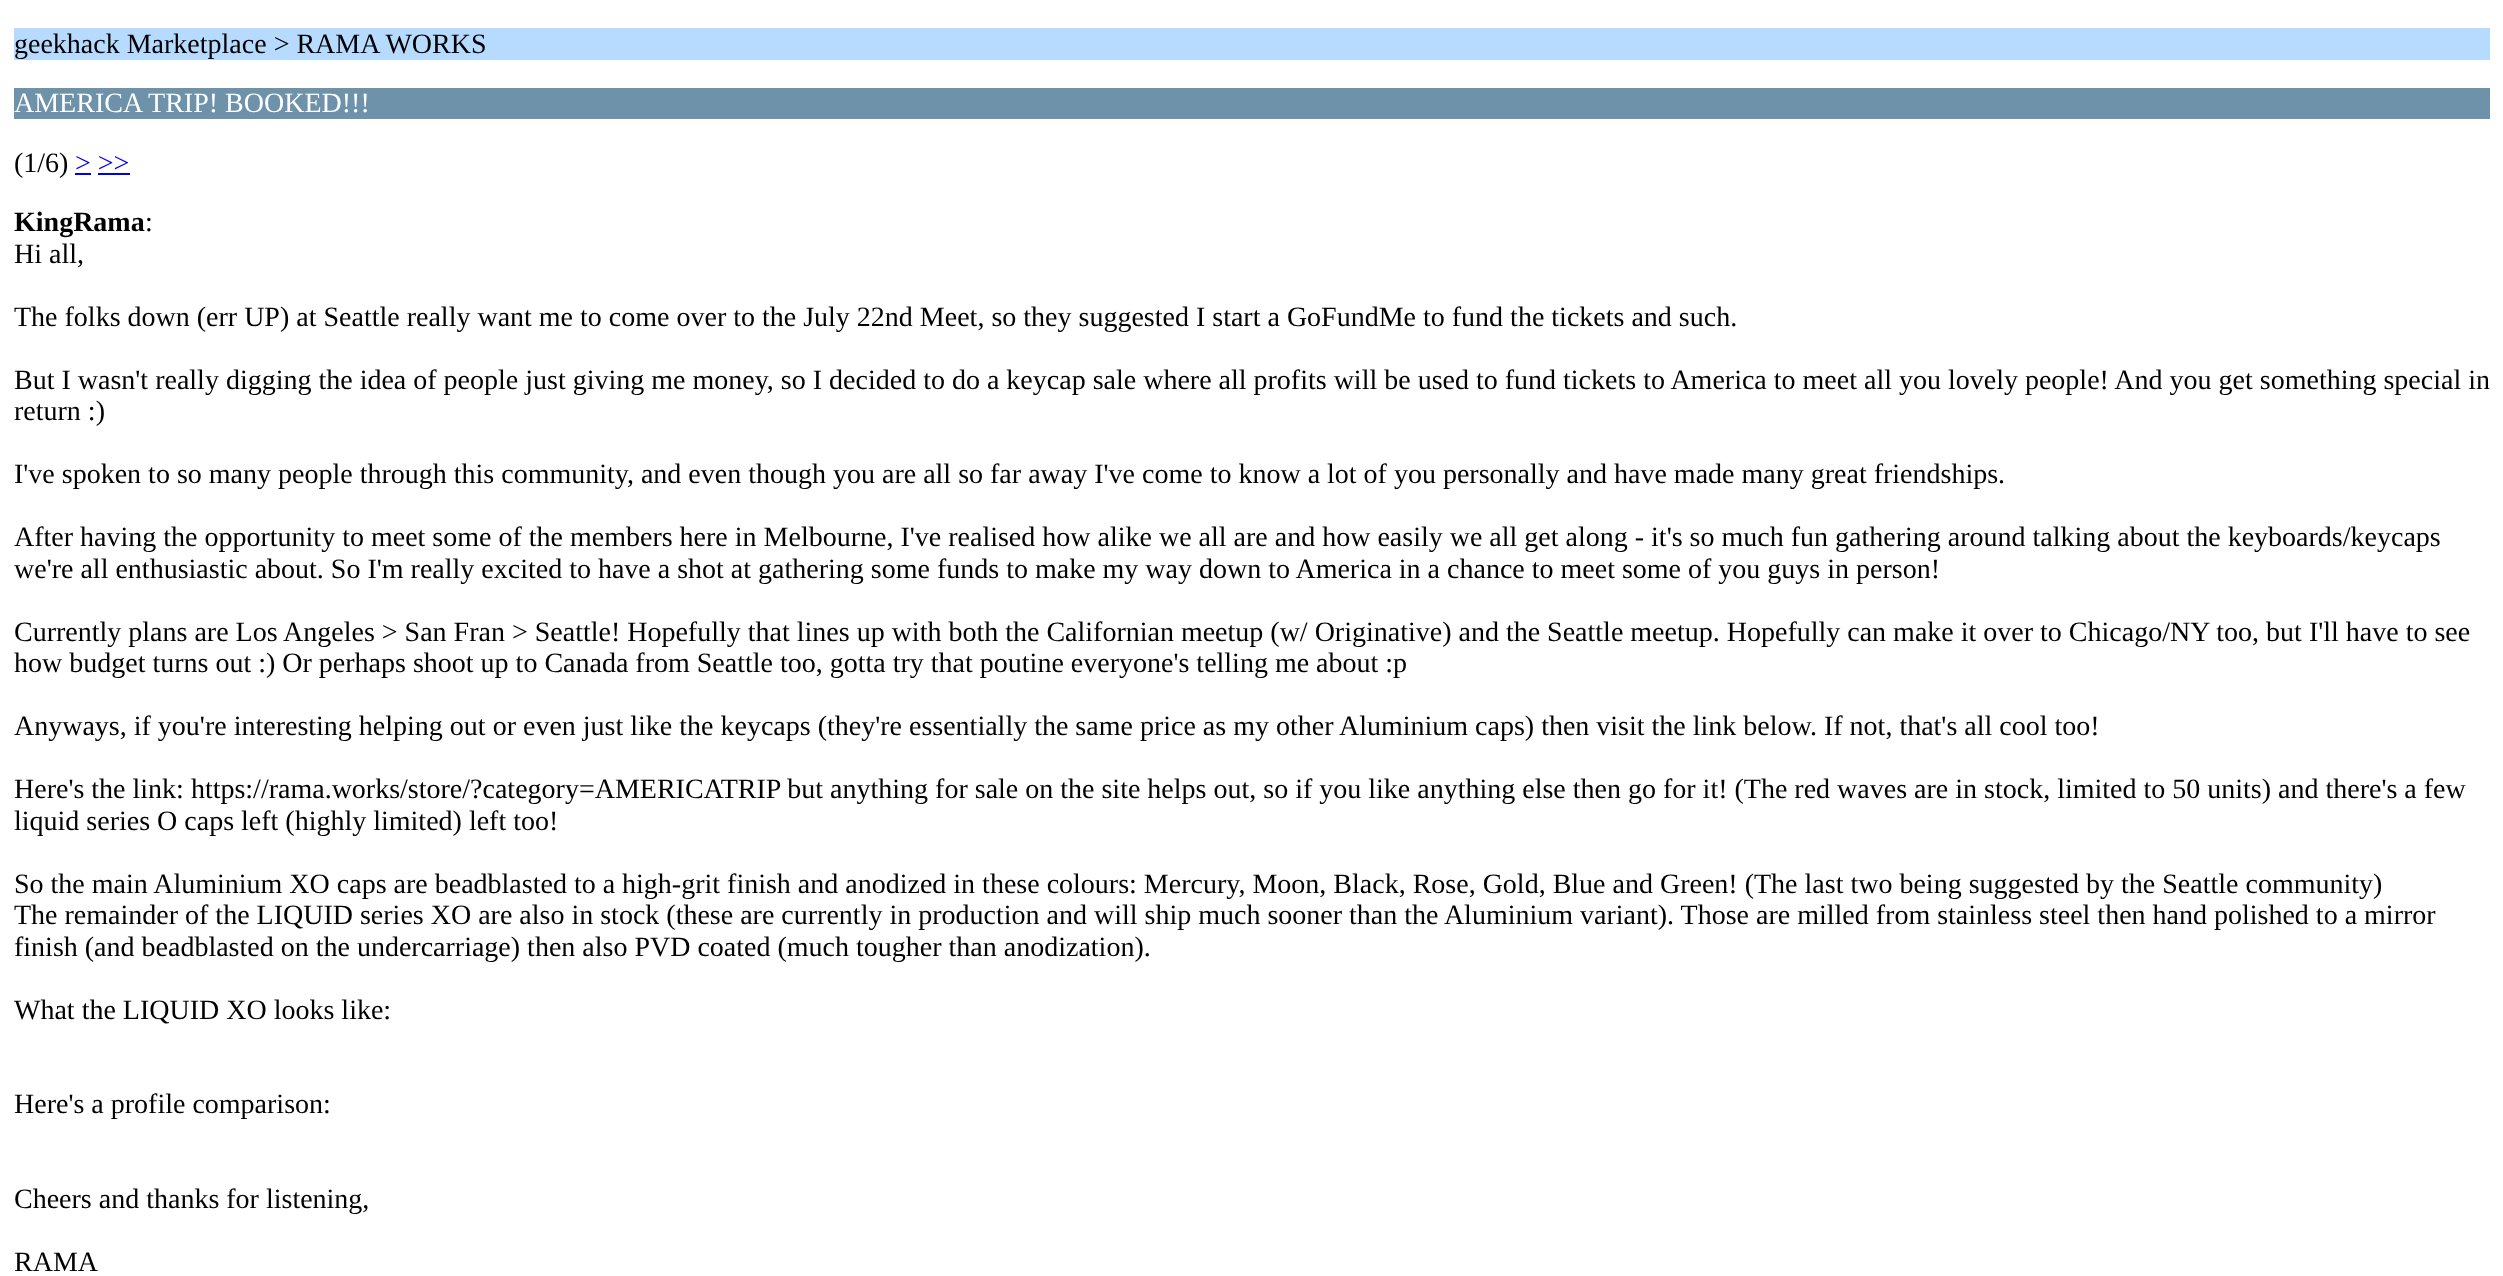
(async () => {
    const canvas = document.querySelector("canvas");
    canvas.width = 2503;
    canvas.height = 1276;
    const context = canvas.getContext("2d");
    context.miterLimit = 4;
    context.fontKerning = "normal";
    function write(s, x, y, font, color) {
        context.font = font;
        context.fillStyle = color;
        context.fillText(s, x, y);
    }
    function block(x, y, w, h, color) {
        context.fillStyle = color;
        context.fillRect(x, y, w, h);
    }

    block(0, 0, 2503, 1276, "rgb(255, 255, 255)");
    block(14, 28, 2476, 32, "rgb(182, 219, 255)");
    write("geekhack Marketplace > RAMA WORKS", 14, 53, "28px Liberation Serif", "rgb(0, 0, 0)");
    block(14, 88, 2476, 31, "rgb(109, 146, 170)");
    write("AMERICA TRIP! BOOKED!!!", 14, 112, "28px Liberation Serif", "rgb(255, 255, 255)");
    write("(1/6)", 14, 172, "28px Liberation Serif", "rgb(0, 0, 0)");
    write("> >>", 75, 172, "28px Liberation Serif", "rgb(0, 0, 238)");
    block(75, 173, 16, 2, "rgb(0, 0, 238)");
    block(98, 173, 32, 2, "rgb(0, 0, 238)");
    write("KingRama", 14, 231, "bold 28px Liberation Serif", "rgb(0, 0, 0)");
    write(":", 145, 231, "28px Liberation Serif", "rgb(0, 0, 0)");
    write("Hi all,", 14, 263, "28px Liberation Serif", "rgb(0, 0, 0)");
    write("The folks down (err UP) at Seattle really want me to come over to the July 22nd Meet, so they suggested I start a GoFundMe to fund the tickets and such.", 14, 326, "28px Liberation Serif", "rgb(0, 0, 0)");
    write("But I wasn't really digging the idea of people just giving me money, so I decided to do a keycap sale where all profits will be used to fund tickets to America to meet all you lovely people! And you get something special in", 14, 389, "28px Liberation Serif", "rgb(0, 0, 0)");
    write("return :)", 14, 420, "28px Liberation Serif", "rgb(0, 0, 0)");
    write("I've spoken to so many people through this community, and even though you are all so far away I've come to know a lot of you personally and have made many great friendships.", 14, 483, "28px Liberation Serif", "rgb(0, 0, 0)");
    write("After having the opportunity to meet some of the members here in Melbourne, I've realised how alike we all are and how easily we all get along - it's so much fun gathering around talking about the keyboards/keycaps", 14, 546, "28px Liberation Serif", "rgb(0, 0, 0)");
    write("we're all enthusiastic about. So I'm really excited to have a shot at gathering some funds to make my way down to America in a chance to meet some of you guys in person!", 14, 578, "28px Liberation Serif", "rgb(0, 0, 0)");
    write("Currently plans are Los Angeles > San Fran > Seattle! Hopefully that lines up with both the Californian meetup (w/ Originative) and the Seattle meetup. Hopefully can make it over to Chicago/NY too, but I'll have to see", 14, 641, "28px Liberation Serif", "rgb(0, 0, 0)");
    write("how budget turns out :) Or perhaps shoot up to Canada from Seattle too, gotta try that poutine everyone's telling me about :p", 14, 672, "28px Liberation Serif", "rgb(0, 0, 0)");
    write("Anyways, if you're interesting helping out or even just like the keycaps (they're essentially the same price as my other Aluminium caps) then visit the link below. If not, that's all cool too!", 14, 735, "28px Liberation Serif", "rgb(0, 0, 0)");
    write("Here's the link: https://rama.works/store/?category=AMERICATRIP but anything for sale on the site helps out, so if you like anything else then go for it! (The red waves are in stock, limited to 50 units) and there's a few", 14, 798, "28px Liberation Serif", "rgb(0, 0, 0)");
    write("liquid series O caps left (highly limited) left too!", 14, 830, "28px Liberation Serif", "rgb(0, 0, 0)");
    write("So the main Aluminium XO caps are beadblasted to a high-grit finish and anodized in these colours: Mercury, Moon, Black, Rose, Gold, Blue and Green! (The last two being suggested by the Seattle community)", 14, 893, "28px Liberation Serif", "rgb(0, 0, 0)");
    write("The remainder of the LIQUID series XO are also in stock (these are currently in production and will ship much sooner than the Aluminium variant). Those are milled from stainless steel then hand polished to a mirror", 14, 924, "28px Liberation Serif", "rgb(0, 0, 0)");
    write("finish (and beadblasted on the undercarriage) then also PVD coated (much tougher than anodization).", 14, 956, "28px Liberation Serif", "rgb(0, 0, 0)");
    write("What the LIQUID XO looks like:", 14, 1019, "28px Liberation Serif", "rgb(0, 0, 0)");
    write("Here's a profile comparison:", 14, 1113, "28px Liberation Serif", "rgb(0, 0, 0)");
    write("Cheers and thanks for listening,", 14, 1208, "28px Liberation Serif", "rgb(0, 0, 0)");
    write("RAMA", 14, 1271, "28px Liberation Serif", "rgb(0, 0, 0)");
})();
